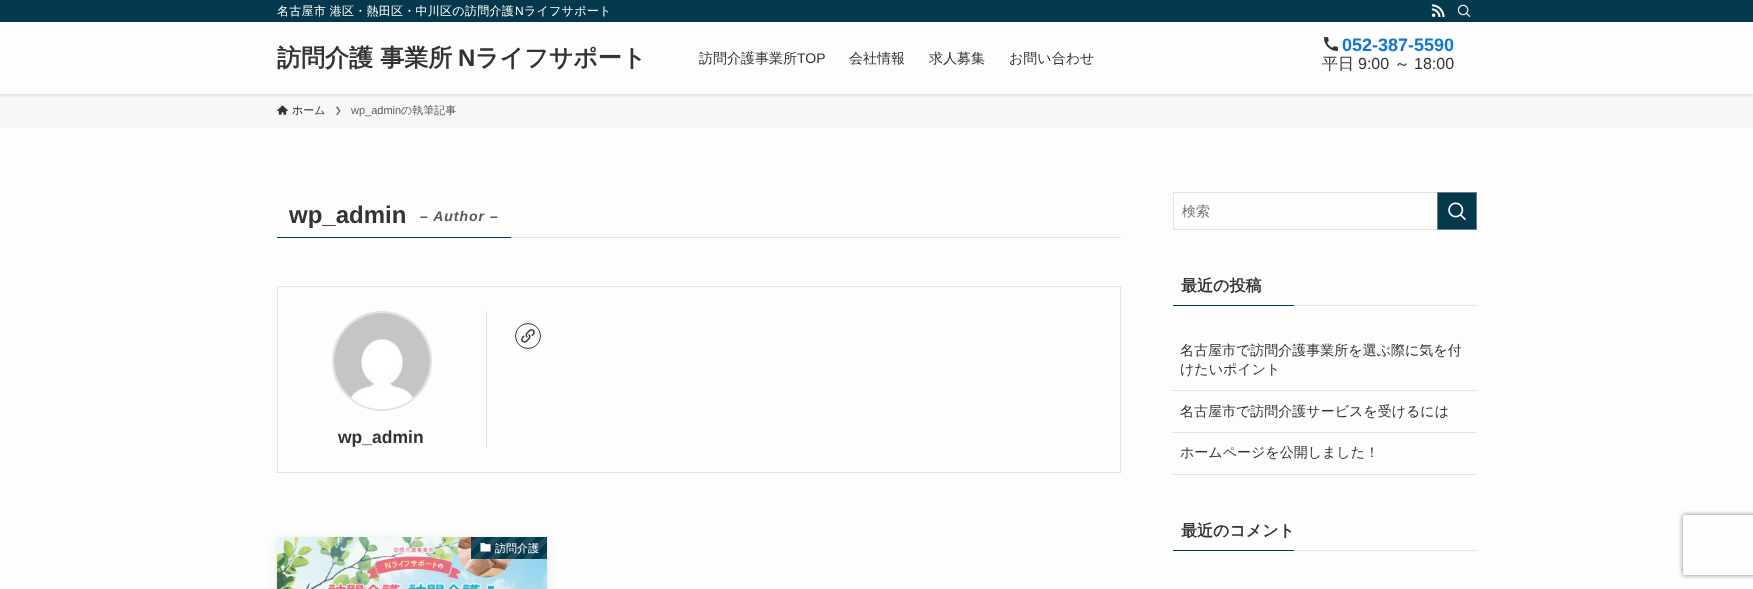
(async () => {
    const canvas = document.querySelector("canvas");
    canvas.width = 1753;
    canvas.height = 589;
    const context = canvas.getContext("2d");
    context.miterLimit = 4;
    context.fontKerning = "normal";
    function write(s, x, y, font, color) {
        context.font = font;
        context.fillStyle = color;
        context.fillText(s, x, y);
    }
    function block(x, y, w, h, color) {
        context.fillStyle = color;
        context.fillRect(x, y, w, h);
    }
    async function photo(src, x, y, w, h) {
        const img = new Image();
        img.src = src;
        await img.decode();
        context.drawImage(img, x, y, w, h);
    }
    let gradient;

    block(0, 0, 1753, 589, "rgb(253, 253, 253)");
    block(0, 94, 1753, 34, "rgb(247, 247, 247)");
    context.save();
    context.beginPath();
    context.rect(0, 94, 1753, 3);
    context.clip();
    context.fillStyle = "rgba(0, 0, 0, 0.12)";
    context.filter = "blur(2px)";
    context.beginPath();
    context.rect(0, 1, 1753, 94);
    context.fill();
    context.filter = "none";
    context.restore();
    block(0, 0, 1753, 22, "rgb(4, 56, 76)");
    context.letterSpacing = "0.25px";
    write("名古屋市 港区・熱田区・中川区の訪問介護", 277, 15, "500 12px WenQuanYi Zen Hei", "rgb(255, 255, 255)");
    write("N", 515, 15, "12px Liberation Sans", "rgb(255, 255, 255)");
    write("ライフサポート", 524, 15, "500 12px WenQuanYi Zen Hei", "rgb(255, 255, 255)");
    await photo("media/1.png", 1431, 4, 14, 13);
    await photo("media/2.png", 1457, 4, 14, 13);
    context.letterSpacing = "0px";
    write("訪問介護 事業所", 277, 66, "bold 24px WenQuanYi Zen Hei", "rgb(51, 51, 51)");
    write("N", 458, 66, "bold 24px Liberation Sans", "rgb(51, 51, 51)");
    write("ライフサポート", 475, 66, "bold 24px WenQuanYi Zen Hei", "rgb(51, 51, 51)");
    write("訪問介護事業所", 699, 63, "500 14px WenQuanYi Zen Hei", "rgb(51, 51, 51)");
    write("TOP", 797, 63, "14px Liberation Sans", "rgb(51, 51, 51)");
    write("会社情報", 849, 63, "500 14px WenQuanYi Zen Hei", "rgb(51, 51, 51)");
    write("求人募集", 929, 63, "500 14px WenQuanYi Zen Hei", "rgb(51, 51, 51)");
    write("お問い合わせ", 1009, 63, "500 14px WenQuanYi Zen Hei", "rgb(51, 51, 51)");
    await photo("media/3.png", 1324, 37, 14, 14);
    write("052-387-5590", 1342, 51, "bold 18px Liberation Sans", "rgb(17, 118, 212)");
    write("平日", 1322, 69, "500 16px WenQuanYi Zen Hei", "rgb(51, 51, 51)");
    write("9:00", 1358, 69, "16px Liberation Sans", "rgb(51, 51, 51)");
    write("～", 1394, 69, "500 16px WenQuanYi Zen Hei", "rgb(51, 51, 51)");
    write("18:00", 1414, 69, "16px Liberation Sans", "rgb(51, 51, 51)");
    await photo("media/4.png", 277, 105, 11, 10);
    write("ホーム", 292, 114, "500 11px WenQuanYi Zen Hei", "rgb(51, 51, 51)");
    context.fillStyle = "rgb(90, 90, 90)";
    context.beginPath();
    context.moveTo(337.5, 106.5);
    context.lineTo(336, 107);
    context.lineTo(339, 111);
    context.lineTo(336, 115);
    context.lineTo(337.5, 115);
    context.lineTo(340.5, 111);
    context.closePath();
    context.fill();
    write("wp_admin", 351, 114, "11px Liberation Sans", "rgb(90, 90, 90)");
    write("の執筆記事", 401, 114, "500 11px WenQuanYi Zen Hei", "rgb(90, 90, 90)");
    block(511, 237, 610, 1, "rgb(226, 226, 226)");
    block(277, 237, 234, 1, "rgb(4, 56, 76)");
    write("wp_admin", 289, 223, "bold 24px Liberation Sans", "rgb(51, 51, 51)");
    context.letterSpacing = "1px";
    write("– Author –", 420, 221, "italic bold 14px Liberation Sans", "rgb(90, 90, 90)");
    context.strokeStyle = "rgb(226, 226, 226)";
    context.strokeRect(277.5, 286.5, 843, 186);
    context.beginPath();
    context.arc(382, 361, 49, 0, Math.PI * 2);
    context.lineWidth = 2;
    context.stroke();
    await photo("media/5.png", 334, 313, 96, 96);
    context.letterSpacing = "0px";
    write("wp_admin", 338, 443, "bold 17.5px Liberation Sans", "rgb(51, 51, 51)");
    block(486, 311, 1, 137, "rgb(226, 226, 226)");
    context.beginPath();
    context.arc(528, 336, 12.5, 0, Math.PI * 2);
    context.strokeStyle = "rgb(51, 51, 51)";
    context.lineWidth = 1;
    context.stroke();
    await photo("media/6.png", 521, 329, 14, 14);
    context.fillStyle = "rgba(0, 0, 0, 0.1)";
    context.filter = "blur(4px)";
    context.beginPath();
    context.rect(277, 539, 270, 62);
    context.fill();
    context.filter = "none";
    await photo("media/7.png", 277, 537, 270, 52);
    gradient = context.createLinearGradient(534, 573, 483, 522);
    gradient.addColorStop(0, "rgb(29, 76, 94)");
    gradient.addColorStop(0.08, "rgb(29, 76, 94)");
    gradient.addColorStop(0.08, "rgb(4, 56, 76)");
    gradient.addColorStop(0.17, "rgb(4, 56, 76)");
    gradient.addColorStop(0.17, "rgb(29, 76, 94)");
    gradient.addColorStop(0.25, "rgb(29, 76, 94)");
    gradient.addColorStop(0.25, "rgb(4, 56, 76)");
    gradient.addColorStop(0.33, "rgb(4, 56, 76)");
    gradient.addColorStop(0.33, "rgb(29, 76, 94)");
    gradient.addColorStop(0.42, "rgb(29, 76, 94)");
    gradient.addColorStop(0.42, "rgb(4, 56, 76)");
    gradient.addColorStop(0.5, "rgb(4, 56, 76)");
    gradient.addColorStop(0.5, "rgb(29, 76, 94)");
    gradient.addColorStop(0.58, "rgb(29, 76, 94)");
    gradient.addColorStop(0.58, "rgb(4, 56, 76)");
    gradient.addColorStop(0.67, "rgb(4, 56, 76)");
    gradient.addColorStop(0.67, "rgb(29, 76, 94)");
    gradient.addColorStop(0.75, "rgb(29, 76, 94)");
    gradient.addColorStop(0.75, "rgb(4, 56, 76)");
    gradient.addColorStop(0.83, "rgb(4, 56, 76)");
    gradient.addColorStop(0.83, "rgb(29, 76, 94)");
    gradient.addColorStop(0.92, "rgb(29, 76, 94)");
    gradient.addColorStop(0.92, "rgb(4, 56, 76)");
    gradient.addColorStop(1, "rgb(4, 56, 76)");
    context.fillStyle = gradient;
    context.fillRect(471, 537, 76, 22);
    await photo("media/8.png", 480, 542, 11, 10);
    write("訪問介護", 495, 552, "500 11px WenQuanYi Zen Hei", "rgb(255, 255, 255)");
    context.strokeStyle = "rgb(227, 227, 227)";
    context.strokeRect(1173.5, 192.5, 303, 37);
    write("検索", 1182, 216, "500 14px WenQuanYi Zen Hei", "rgb(117, 117, 117)");
    context.fillStyle = "rgb(4, 56, 76)";
    context.beginPath();
    context.rect(1437.5, 192.5, 39, 37);
    context.fill();
    context.strokeStyle = "rgb(102, 128, 138)";
    context.stroke();
    await photo("media/9.png", 1448, 202, 18, 18);
    write("最近の投稿", 1181, 291, "bold 16px WenQuanYi Zen Hei", "rgb(51, 51, 51)");
    block(1173, 305, 121, 1, "rgb(4, 56, 76)");
    block(1294, 305, 183, 1, "rgb(226, 226, 226)");
    block(1173, 390, 304, 1, "rgb(226, 226, 226)");
    write("名古屋市で訪問介護事業所を選ぶ際に気を付", 1180, 355, "500 14px WenQuanYi Zen Hei", "rgb(51, 51, 51)");
    write("けたいポイント", 1180, 374, "500 14px WenQuanYi Zen Hei", "rgb(51, 51, 51)");
    block(1173, 432, 304, 1, "rgb(226, 226, 226)");
    write("名古屋市で訪問介護サービスを受けるには", 1180, 416, "500 14px WenQuanYi Zen Hei", "rgb(51, 51, 51)");
    block(1173, 474, 304, 1, "rgb(226, 226, 226)");
    write("ホームページを公開しました！", 1180, 457, "500 14px WenQuanYi Zen Hei", "rgb(51, 51, 51)");
    write("最近のコメント", 1181, 536, "bold 16px WenQuanYi Zen Hei", "rgb(51, 51, 51)");
    block(1173, 550, 121, 1, "rgb(4, 56, 76)");
    block(1294, 550, 183, 1, "rgb(226, 226, 226)");
    context.save();
    context.beginPath();
    context.moveTo(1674, 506);
    context.lineTo(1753, 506);
    context.lineTo(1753, 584);
    context.lineTo(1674, 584);
    context.closePath();
    context.moveTo(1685, 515);
    context.lineTo(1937, 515);
    context.bezierCurveTo(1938, 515, 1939, 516, 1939, 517);
    context.lineTo(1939, 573);
    context.bezierCurveTo(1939, 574, 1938, 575, 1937, 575);
    context.lineTo(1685, 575);
    context.bezierCurveTo(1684, 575, 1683, 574, 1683, 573);
    context.lineTo(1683, 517);
    context.bezierCurveTo(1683, 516, 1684, 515, 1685, 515);
    context.closePath();
    context.clip("evenodd");
    context.fillStyle = "rgb(128, 128, 128)";
    context.filter = "blur(2.5px)";
    context.beginPath();
    context.roundRect(1683, 515, 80, 60, 2);
    context.fill();
    context.filter = "none";
    context.restore();
})();
